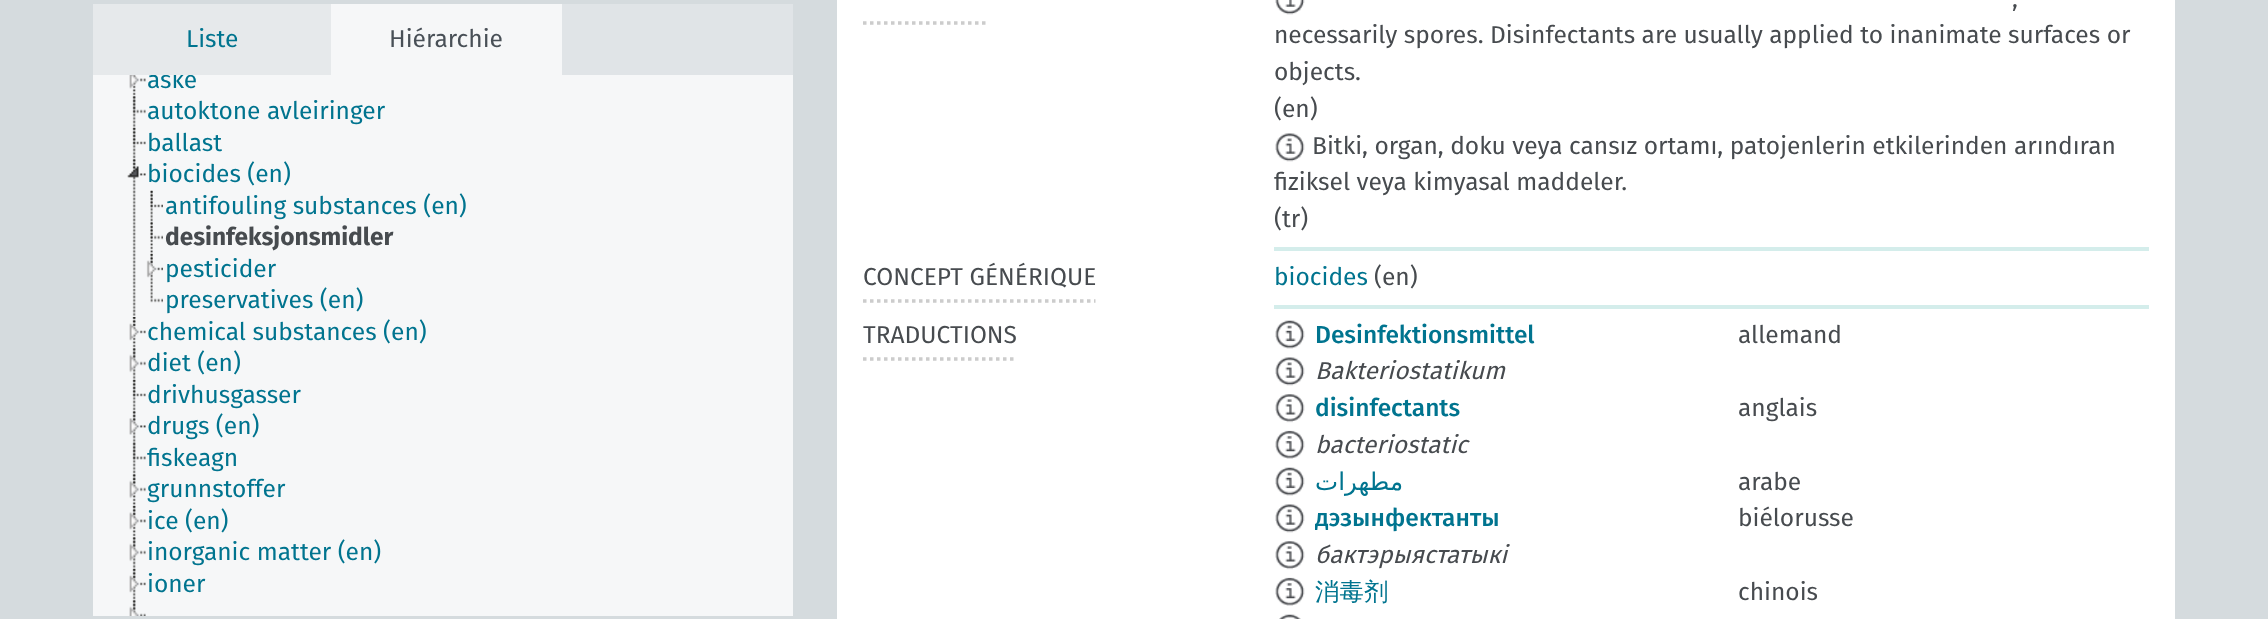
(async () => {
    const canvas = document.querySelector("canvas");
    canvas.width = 2268;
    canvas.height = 619;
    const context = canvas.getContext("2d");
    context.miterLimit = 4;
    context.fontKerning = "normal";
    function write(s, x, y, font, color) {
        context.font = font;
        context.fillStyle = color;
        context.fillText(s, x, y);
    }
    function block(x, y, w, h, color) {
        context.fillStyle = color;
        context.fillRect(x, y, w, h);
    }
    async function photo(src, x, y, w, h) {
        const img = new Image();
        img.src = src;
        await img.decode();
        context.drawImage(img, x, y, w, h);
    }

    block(0, 0, 2268, 619, "rgb(213, 219, 222)");
    block(562, 4, 231, 71, "rgb(224, 228, 231)");
    block(93, 4, 238, 71, "rgb(230, 233, 235)");
    write("Liste", 186, 47, "24.5px Fira Sans", "rgb(0, 116, 143)");
    block(331, 4, 231, 71, "rgb(246, 247, 248)");
    write("Hiérarchie", 389, 47, "24.5px Fira Sans", "rgb(73, 80, 87)");
    block(93, 75, 700, 541, "rgb(246, 247, 248)");
    await photo("media/1.png", 132, 75, 4, 21);
    await photo("media/2.png", 129, 75, 17, 14);
    context.save();
    context.beginPath();
    context.rect(93, 75, 700, 541);
    context.clip();
    write("aske", 147, 88, "24.5px Fira Sans", "rgb(0, 116, 143)");
    context.restore();
    await photo("media/3.png", 132, 96, 4, 32);
    await photo("media/4.png", 132, 96, 14, 18);
    write("autoktone avleiringer", 147, 119, "24.5px Fira Sans", "rgb(0, 116, 143)");
    await photo("media/5.png", 132, 127, 4, 32);
    await photo("media/6.png", 132, 128, 14, 17);
    write("ballast", 147, 151, "24.5px Fira Sans", "rgb(0, 116, 143)");
    await photo("media/7.png", 132, 159, 4, 158);
    await photo("media/8.png", 127, 159, 19, 19);
    write("biocides (en)", 147, 182, "24.5px Fira Sans", "rgb(0, 116, 143)");
    await photo("media/9.png", 150, 190, 3, 32);
    await photo("media/10.png", 150, 191, 13, 17);
    write("antifouling substances (en)", 165, 214, "24.5px Fira Sans", "rgb(0, 116, 143)");
    await photo("media/11.png", 150, 222, 3, 31);
    await photo("media/12.png", 150, 222, 13, 18);
    write("desinfeksjonsmidler", 165, 245, "bold 24.5px Fira Sans", "rgb(71, 75, 79)");
    await photo("media/13.png", 150, 253, 3, 32);
    await photo("media/14.png", 146, 254, 17, 24);
    write("pesticider", 165, 277, "24.5px Fira Sans", "rgb(0, 116, 143)");
    await photo("media/15.png", 150, 285, 13, 18);
    write("preservatives (en)", 165, 308, "24.5px Fira Sans", "rgb(0, 116, 143)");
    await photo("media/16.png", 132, 317, 4, 31);
    await photo("media/17.png", 129, 317, 17, 24);
    write("chemical substances (en)", 147, 340, "24.5px Fira Sans", "rgb(0, 116, 143)");
    await photo("media/3.png", 132, 348, 4, 32);
    await photo("media/18.png", 129, 348, 17, 25);
    write("diet (en)", 147, 371, "24.5px Fira Sans", "rgb(0, 116, 143)");
    await photo("media/5.png", 132, 379, 4, 32);
    await photo("media/6.png", 132, 380, 14, 17);
    write("drivhusgasser", 147, 403, "24.5px Fira Sans", "rgb(0, 116, 143)");
    await photo("media/3.png", 132, 411, 4, 32);
    await photo("media/19.png", 129, 411, 17, 24);
    write("drugs (en)", 147, 434, "24.5px Fira Sans", "rgb(0, 116, 143)");
    await photo("media/5.png", 132, 442, 4, 32);
    await photo("media/20.png", 132, 442, 14, 18);
    write("fiskeagn", 147, 466, "24.5px Fira Sans", "rgb(0, 116, 143)");
    await photo("media/21.png", 132, 474, 4, 31);
    await photo("media/22.png", 129, 474, 17, 25);
    write("grunnstoffer", 147, 497, "24.5px Fira Sans", "rgb(0, 116, 143)");
    await photo("media/16.png", 132, 506, 4, 31);
    await photo("media/23.png", 129, 505, 17, 25);
    write("ice (en)", 147, 529, "24.5px Fira Sans", "rgb(0, 116, 143)");
    await photo("media/3.png", 132, 537, 4, 32);
    await photo("media/18.png", 129, 537, 17, 25);
    write("inorganic matter (en)", 147, 560, "24.5px Fira Sans", "rgb(0, 116, 143)");
    await photo("media/5.png", 132, 568, 4, 32);
    await photo("media/24.png", 129, 569, 17, 24);
    write("ioner", 147, 592, "24.5px Fira Sans", "rgb(0, 116, 143)");
    await photo("media/25.png", 132, 600, 4, 14);
    await photo("media/26.png", 129, 600, 17, 16);
    block(837, 0, 1338, 619, "rgb(255, 255, 255)");
    context.beginPath();
    context.moveTo(863, 23);
    context.lineTo(989, 23);
    context.strokeStyle = "rgb(204, 204, 204)";
    context.lineWidth = 3.5;
    context.setLineDash([3.5, 3.5]);
    context.stroke();
    block(1274, 247, 875, 4, "rgb(212, 237, 235)");
    await photo("media/27.png", 1275, 0, 30, 15);
    write(",", 2012, 7, "24.5px Fira Sans", "rgb(71, 75, 79)");
    write("necessarily spores. Disinfectants are usually applied to inanimate surfaces or", 1274, 43, "24.5px Fira Sans", "rgb(71, 75, 79)");
    write("objects.", 1274, 80, "24.5px Fira Sans", "rgb(71, 75, 79)");
    write("(en)", 1274, 117, "24.5px Fira Sans", "rgb(71, 75, 79)");
    await photo("media/28.png", 1275, 133, 30, 29);
    write("Bitki, organ, doku veya cansız ortamı, patojenlerin etkilerinden arındıran", 1312, 154, "24.5px Fira Sans", "rgb(71, 75, 79)");
    write("fiziksel veya kimyasal maddeler.", 1274, 190, "24.5px Fira Sans", "rgb(71, 75, 79)");
    write("(tr)", 1274, 227, "24.5px Fira Sans", "rgb(71, 75, 79)");
    context.beginPath();
    context.moveTo(863, 301);
    context.lineTo(1095.5, 301);
    context.stroke();
    write("CONCEPT GÉNÉRIQUE", 863, 285, "24.5px Fira Sans", "rgb(71, 75, 79)");
    block(1274, 305, 875, 4, "rgb(212, 237, 235)");
    write("biocides", 1274, 285, "24.5px Fira Sans", "rgb(0, 116, 143)");
    write("(en)", 1374, 285, "24.5px Fira Sans", "rgb(71, 75, 79)");
    context.beginPath();
    context.moveTo(863, 359);
    context.lineTo(1017, 359);
    context.stroke();
    write("TRADUCTIONS", 863, 343, "24.5px Fira Sans", "rgb(71, 75, 79)");
    await photo("media/29.png", 1275, 320, 30, 29);
    write("Desinfektionsmittel", 1315, 343, "500 24.5px Fira Sans", "rgb(0, 116, 143)");
    write("allemand", 1738, 343, "24.5px Fira Sans", "rgb(71, 75, 79)");
    await photo("media/28.png", 1275, 357, 30, 29);
    write("Bakteriostatikum", 1315, 379, "italic 24.5px Fira Sans", "rgb(71, 75, 79)");
    await photo("media/30.png", 1275, 394, 30, 29);
    write("disinfectants", 1315, 416, "500 24.5px Fira Sans", "rgb(0, 116, 143)");
    write("anglais", 1738, 416, "24.5px Fira Sans", "rgb(71, 75, 79)");
    await photo("media/31.png", 1275, 430, 30, 29);
    write("bacteriostatic", 1315, 453, "italic 24.5px Fira Sans", "rgb(71, 75, 79)");
    await photo("media/29.png", 1275, 467, 30, 29);
    context.direction = "rtl";
    write("مطهرات", 1403, 490, "24.5px DejaVu Sans", "rgb(0, 116, 143)");
    context.direction = "ltr";
    write("arabe", 1738, 490, "24.5px Fira Sans", "rgb(71, 75, 79)");
    await photo("media/28.png", 1275, 504, 30, 29);
    write("дэзынфектанты", 1315, 526, "500 24.5px Fira Sans", "rgb(0, 116, 143)");
    write("biélorusse", 1738, 526, "24.5px Fira Sans", "rgb(71, 75, 79)");
    await photo("media/30.png", 1275, 541, 30, 29);
    write("бактэрыястатыкі", 1315, 563, "italic 24.5px Fira Sans", "rgb(71, 75, 79)");
    await photo("media/31.png", 1275, 577, 30, 29);
    write("消毒剂", 1315, 600, "500 24.5px WenQuanYi Zen Hei", "rgb(0, 116, 143)");
    write("chinois", 1738, 600, "24.5px Fira Sans", "rgb(71, 75, 79)");
    await photo("media/32.png", 1279, 614, 22, 5);
})();
